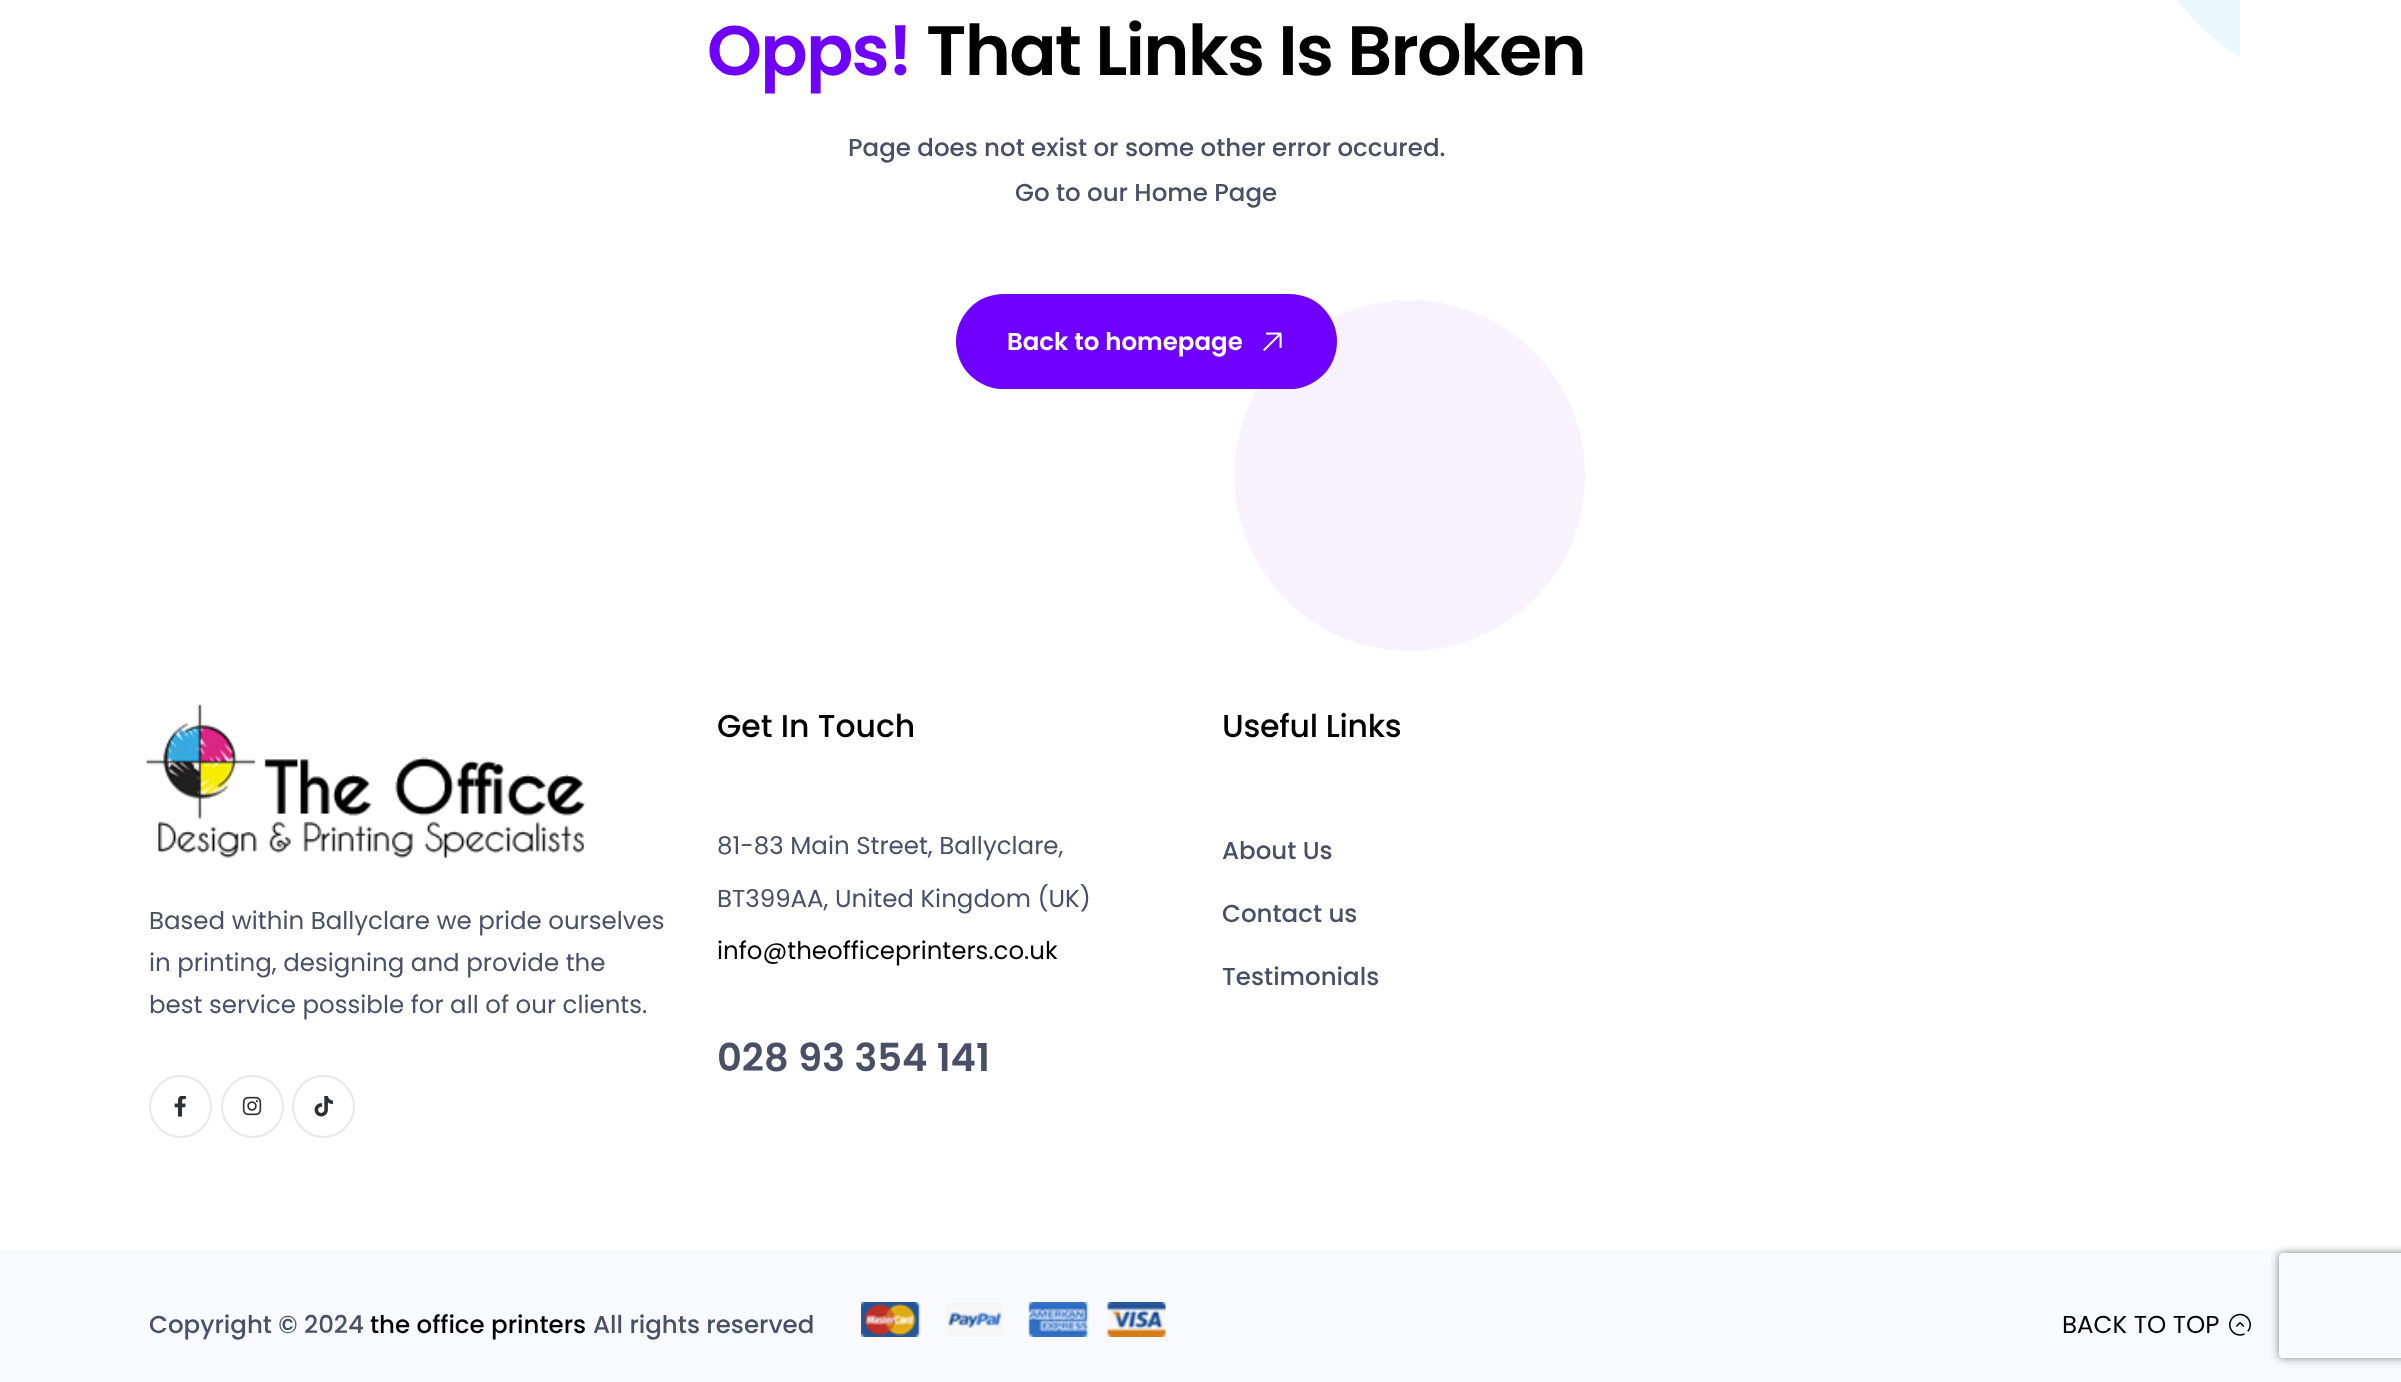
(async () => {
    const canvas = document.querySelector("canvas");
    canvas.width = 2401;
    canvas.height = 1382;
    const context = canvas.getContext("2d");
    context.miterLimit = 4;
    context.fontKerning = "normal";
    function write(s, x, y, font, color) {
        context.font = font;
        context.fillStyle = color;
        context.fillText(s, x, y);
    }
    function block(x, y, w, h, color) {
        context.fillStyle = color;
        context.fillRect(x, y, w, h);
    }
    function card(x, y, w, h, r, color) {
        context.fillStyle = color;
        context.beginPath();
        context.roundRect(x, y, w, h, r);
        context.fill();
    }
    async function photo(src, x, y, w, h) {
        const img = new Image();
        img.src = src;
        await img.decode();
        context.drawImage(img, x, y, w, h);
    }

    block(0, 0, 2401, 1382, "rgb(255, 255, 255)");
    await photo("media/1.png", 1234, 0, 1006, 651);
    context.letterSpacing = "-1.75px";
    write("Opps!", 707, 75, "600 70px Poppins", "rgb(112, 0, 254)");
    write("That Links Is Broken", 926, 75, "600 70px Poppins", "rgb(0, 0, 0)");
    context.letterSpacing = "0px";
    write("Page does not exist or some other error occured.", 848, 156, "500 24.5px Poppins", "rgb(73, 79, 102)");
    write("Go to our Home Page", 1015, 201, "500 24.5px Poppins", "rgb(73, 79, 102)");
    card(956, 294, 381, 95, 47.5, "rgb(112, 0, 254)");
    write("Back to homepage", 1007, 350, "600 24.5px Poppins", "rgb(255, 255, 255)");
    await photo("media/2.png", 1263, 332, 19, 19);
    await photo("media/3.png", 146, 704, 440, 155);
    write("Based within Ballyclare we pride ourselves", 149, 929, "24.5px Poppins", "rgb(73, 79, 102)");
    write("in printing, designing and provide the", 149, 971, "24.5px Poppins", "rgb(73, 79, 102)");
    write("best service possible for all of our clients.", 149, 1013, "24.5px Poppins", "rgb(73, 79, 102)");
    context.beginPath();
    context.arc(180.5, 1106.5, 30.5, 0, Math.PI * 2);
    context.strokeStyle = "rgb(232, 232, 232)";
    context.lineWidth = 2;
    context.stroke();
    await photo("media/4.png", 174, 1096, 12, 21);
    context.beginPath();
    context.arc(252.5, 1106.5, 30.5, 0, Math.PI * 2);
    context.stroke();
    await photo("media/5.png", 242, 1096, 20, 20);
    context.beginPath();
    context.arc(323.5, 1106.5, 30.5, 0, Math.PI * 2);
    context.stroke();
    await photo("media/6.png", 314, 1096, 19, 21);
    write("Get In Touch", 717, 737, "500 31.5px Poppins", "rgb(0, 0, 0)");
    write("81-83 Main Street, Ballyclare,", 717, 854, "24.5px Poppins", "rgb(73, 79, 102)");
    write("BT399AA, United Kingdom (UK)", 717, 907, "24.5px Poppins", "rgb(73, 79, 102)");
    write("info@theofficeprinters.co.uk", 717, 959, "24.5px Poppins", "rgb(0, 0, 0)");
    write("028 93 354 141", 717, 1071, "600 38.5px Poppins", "rgb(73, 79, 102)");
    context.letterSpacing = "-0.25px";
    write("Useful Links", 1222, 737, "500 31.5px Poppins", "rgb(0, 0, 0)");
    context.letterSpacing = "0px";
    write("About Us", 1222, 859, "500 24.5px Poppins", "rgb(73, 79, 102)");
    write("Contact us", 1222, 922, "500 24.5px Poppins", "rgb(73, 79, 102)");
    write("Testimonials", 1222, 985, "500 24.5px Poppins", "rgb(73, 79, 102)");
    block(0, 1250, 2401, 132, "rgb(249, 250, 255)");
    write("Copyright © 2024", 149, 1333, "500 24.5px Poppins", "rgb(73, 79, 102)");
    write("the office printers", 370, 1333, "500 24.5px Poppins", "rgb(0, 0, 0)");
    write("All rights reserved", 593, 1333, "500 24.5px Poppins", "rgb(73, 79, 102)");
    await photo("media/7.png", 861, 1302, 305, 35);
    write("BACK TO TOP", 2062, 1333, "24.5px Poppins", "rgb(0, 0, 0)");
    await photo("media/8.png", 2229, 1313, 22, 23);
    context.save();
    context.beginPath();
    context.moveTo(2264, 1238);
    context.lineTo(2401, 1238);
    context.lineTo(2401, 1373);
    context.lineTo(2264, 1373);
    context.closePath();
    context.moveTo(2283, 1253);
    context.lineTo(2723, 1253);
    context.bezierCurveTo(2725, 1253, 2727, 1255, 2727, 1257);
    context.lineTo(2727, 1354);
    context.bezierCurveTo(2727, 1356, 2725, 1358, 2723, 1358);
    context.lineTo(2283, 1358);
    context.bezierCurveTo(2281, 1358, 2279, 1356, 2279, 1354);
    context.lineTo(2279, 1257);
    context.bezierCurveTo(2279, 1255, 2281, 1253, 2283, 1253);
    context.closePath();
    context.clip("evenodd");
    context.fillStyle = "rgb(128, 128, 128)";
    context.filter = "blur(4.5px)";
    context.beginPath();
    context.roundRect(2279, 1253, 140, 105, 4);
    context.fill();
    context.filter = "none";
    context.restore();
})();
